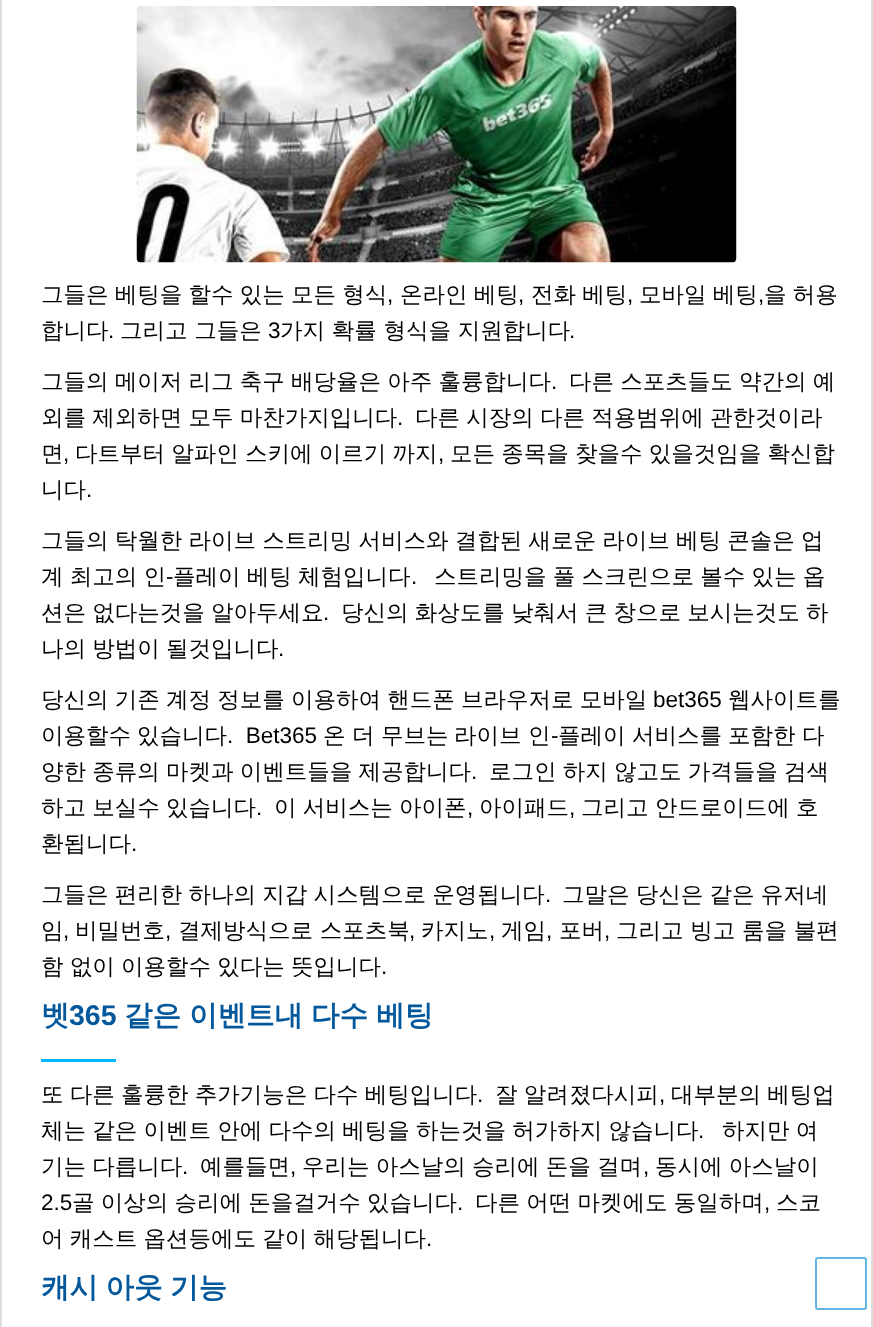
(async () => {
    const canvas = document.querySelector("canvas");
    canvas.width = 873;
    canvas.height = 1327;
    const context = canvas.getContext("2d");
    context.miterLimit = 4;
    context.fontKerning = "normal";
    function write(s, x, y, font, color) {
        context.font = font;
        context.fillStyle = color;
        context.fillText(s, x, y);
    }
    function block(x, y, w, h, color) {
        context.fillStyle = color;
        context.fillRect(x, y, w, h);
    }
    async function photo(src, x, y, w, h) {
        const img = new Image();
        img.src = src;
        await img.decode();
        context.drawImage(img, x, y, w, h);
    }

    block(0, 0, 873, 1327, "rgb(255, 255, 255)");
    context.strokeStyle = "rgb(221, 221, 221)";
    context.lineWidth = 2;
    context.strokeRect(1, -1, 871, 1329);
    await photo("media/1.png", 136, 6, 601, 257);
    context.wordSpacing = "-0.5px";
    write("그들은 베팅을 할수 있는 모든 형식", 41, 302, "500 22.5px WenQuanYi Zen Hei", "rgb(1, 1, 1)");
    context.wordSpacing = "0px";
    write(",", 387, 302, "22.5px Liberation Sans", "rgb(1, 1, 1)");
    context.wordSpacing = "-0.5px";
    write("온라인 베팅", 400, 302, "500 22.5px WenQuanYi Zen Hei", "rgb(1, 1, 1)");
    context.wordSpacing = "0px";
    write(",", 518, 302, "22.5px Liberation Sans", "rgb(1, 1, 1)");
    context.wordSpacing = "-0.5px";
    write("전화 베팅", 531, 302, "500 22.5px WenQuanYi Zen Hei", "rgb(1, 1, 1)");
    context.wordSpacing = "0px";
    write(",", 627, 302, "22.5px Liberation Sans", "rgb(1, 1, 1)");
    context.wordSpacing = "-0.5px";
    write("모바일 베팅", 639, 302, "500 22.5px WenQuanYi Zen Hei", "rgb(1, 1, 1)");
    context.wordSpacing = "0px";
    write(",", 758, 302, "22.5px Liberation Sans", "rgb(1, 1, 1)");
    context.wordSpacing = "-0.5px";
    write("을 허용", 764, 302, "500 22.5px WenQuanYi Zen Hei", "rgb(1, 1, 1)");
    context.wordSpacing = "0px";
    write("합니다", 41, 338, "500 22.5px WenQuanYi Zen Hei", "rgb(1, 1, 1)");
    write(".", 108, 338, "22.5px Liberation Sans", "rgb(1, 1, 1)");
    write("그리고 그들은", 120, 338, "500 22.5px WenQuanYi Zen Hei", "rgb(1, 1, 1)");
    write("3", 268, 338, "22.5px Liberation Sans", "rgb(1, 1, 1)");
    write("가지 확률 형식을 지원합니다", 280, 338, "500 22.5px WenQuanYi Zen Hei", "rgb(1, 1, 1)");
    write(".", 569, 338, "22.5px Liberation Sans", "rgb(1, 1, 1)");
    context.wordSpacing = "-0.5px";
    write("그들의 메이저 리그 축구 배당율은 아주 훌륭합니다", 41, 389, "500 22.5px WenQuanYi Zen Hei", "rgb(1, 1, 1)");
    context.wordSpacing = "0px";
    write(".", 551, 389, "22.5px Liberation Sans", "rgb(1, 1, 1)");
    context.wordSpacing = "-0.5px";
    write("다른 스포츠들도 약간의 예", 569, 389, "500 22.5px WenQuanYi Zen Hei", "rgb(1, 1, 1)");
    write("외를 제외하면 모두 마찬가지입니다", 41, 425, "500 22.5px WenQuanYi Zen Hei", "rgb(1, 1, 1)");
    context.wordSpacing = "0px";
    write(".", 397, 425, "22.5px Liberation Sans", "rgb(1, 1, 1)");
    context.wordSpacing = "-0.5px";
    write("다른 시장의 다른 적용범위에 관한것이라", 415, 425, "500 22.5px WenQuanYi Zen Hei", "rgb(1, 1, 1)");
    context.wordSpacing = "0px";
    write("면", 41, 461, "500 22.5px WenQuanYi Zen Hei", "rgb(1, 1, 1)");
    write(",", 63, 461, "22.5px Liberation Sans", "rgb(1, 1, 1)");
    context.wordSpacing = "-0.5px";
    write("다트부터 알파인 스키에 이르기 까지", 75, 461, "500 22.5px WenQuanYi Zen Hei", "rgb(1, 1, 1)");
    context.wordSpacing = "0px";
    write(",", 438, 461, "22.5px Liberation Sans", "rgb(1, 1, 1)");
    context.wordSpacing = "-0.5px";
    write("모든 종목을 찾을수 있을것임을 확신합", 450, 461, "500 22.5px WenQuanYi Zen Hei", "rgb(1, 1, 1)");
    context.wordSpacing = "0px";
    write("니다", 41, 497, "500 22.5px WenQuanYi Zen Hei", "rgb(1, 1, 1)");
    write(".", 86, 497, "22.5px Liberation Sans", "rgb(1, 1, 1)");
    context.wordSpacing = "-0.5px";
    write("그들의 탁월한 라이브 스트리밍 서비스와 결합된 새로운 라이브 베팅 콘솔은 업", 41, 548, "500 22.5px WenQuanYi Zen Hei", "rgb(1, 1, 1)");
    write("계 최고의 인", 41, 584, "500 22.5px WenQuanYi Zen Hei", "rgb(1, 1, 1)");
    context.wordSpacing = "0px";
    write("-", 166, 584, "22.5px Liberation Sans", "rgb(1, 1, 1)");
    context.wordSpacing = "-0.5px";
    write("플레이 베팅 체험입니다", 173, 584, "500 22.5px WenQuanYi Zen Hei", "rgb(1, 1, 1)");
    write("스트리밍을 풀 스크린으로 볼수 있는 옵", 434, 584, "500 22.5px WenQuanYi Zen Hei", "rgb(1, 1, 1)");
    context.wordSpacing = "0px";
    write(".", 411, 584, "22.5px Liberation Sans", "rgb(1, 1, 1)");
    context.wordSpacing = "-0.5px";
    write("션은 없다는것을 알아두세요", 41, 620, "500 22.5px WenQuanYi Zen Hei", "rgb(1, 1, 1)");
    context.wordSpacing = "0px";
    write(".", 323, 620, "22.5px Liberation Sans", "rgb(1, 1, 1)");
    context.wordSpacing = "-0.5px";
    write("당신의 화상도를 낮춰서 큰 창으로 보시는것도 하", 341, 620, "500 22.5px WenQuanYi Zen Hei", "rgb(1, 1, 1)");
    write("나의 방법이 될것입니다", 41, 656, "500 22.5px WenQuanYi Zen Hei", "rgb(1, 1, 1)");
    context.wordSpacing = "0px";
    write(".", 278, 656, "22.5px Liberation Sans", "rgb(1, 1, 1)");
    context.wordSpacing = "-0.5px";
    write("당신의 기존 계정 정보를 이용하여 핸드폰 브라우저로 모바일", 41, 707, "500 22.5px WenQuanYi Zen Hei", "rgb(1, 1, 1)");
    context.wordSpacing = "0px";
    write("bet365", 653, 707, "22.5px Liberation Sans", "rgb(1, 1, 1)");
    write("웹사이트를", 728, 707, "500 22.5px WenQuanYi Zen Hei", "rgb(1, 1, 1)");
    write("이용할수", 41, 743, "500 22.5px WenQuanYi Zen Hei", "rgb(1, 1, 1)");
    write("있습니다", 137, 743, "500 22.5px WenQuanYi Zen Hei", "rgb(1, 1, 1)");
    write(".  Bet365", 227, 743, "22.5px Liberation Sans", "rgb(1, 1, 1)");
    write("온", 323, 743, "500 22.5px WenQuanYi Zen Hei", "rgb(1, 1, 1)");
    write("더", 352, 743, "500 22.5px WenQuanYi Zen Hei", "rgb(1, 1, 1)");
    write("무브는", 381, 743, "500 22.5px WenQuanYi Zen Hei", "rgb(1, 1, 1)");
    write("라이브", 454, 743, "500 22.5px WenQuanYi Zen Hei", "rgb(1, 1, 1)");
    write("인", 528, 743, "500 22.5px WenQuanYi Zen Hei", "rgb(1, 1, 1)");
    write("-", 551, 743, "22.5px Liberation Sans", "rgb(1, 1, 1)");
    write("플레이", 558, 743, "500 22.5px WenQuanYi Zen Hei", "rgb(1, 1, 1)");
    write("서비스를", 632, 743, "500 22.5px WenQuanYi Zen Hei", "rgb(1, 1, 1)");
    write("포함한", 728, 743, "500 22.5px WenQuanYi Zen Hei", "rgb(1, 1, 1)");
    write("다", 802, 743, "500 22.5px WenQuanYi Zen Hei", "rgb(1, 1, 1)");
    context.wordSpacing = "-0.5px";
    write("양한 종류의 마켓과 이벤트들을 제공합니다", 41, 779, "500 22.5px WenQuanYi Zen Hei", "rgb(1, 1, 1)");
    context.wordSpacing = "0px";
    write(".", 471, 779, "22.5px Liberation Sans", "rgb(1, 1, 1)");
    context.wordSpacing = "-0.5px";
    write("로그인 하지 않고도 가격들을 검색", 489, 779, "500 22.5px WenQuanYi Zen Hei", "rgb(1, 1, 1)");
    write("하고 보실수 있습니다", 41, 815, "500 22.5px WenQuanYi Zen Hei", "rgb(1, 1, 1)");
    context.wordSpacing = "0px";
    write(".", 256, 815, "22.5px Liberation Sans", "rgb(1, 1, 1)");
    context.wordSpacing = "-0.5px";
    write("이 서비스는 아이폰", 274, 815, "500 22.5px WenQuanYi Zen Hei", "rgb(1, 1, 1)");
    context.wordSpacing = "0px";
    write(",", 467, 815, "22.5px Liberation Sans", "rgb(1, 1, 1)");
    write("아이패드", 479, 815, "500 22.5px WenQuanYi Zen Hei", "rgb(1, 1, 1)");
    write(",", 569, 815, "22.5px Liberation Sans", "rgb(1, 1, 1)");
    context.wordSpacing = "-0.5px";
    write("그리고 안드로이드에 호", 581, 815, "500 22.5px WenQuanYi Zen Hei", "rgb(1, 1, 1)");
    context.wordSpacing = "0px";
    write("환됩니다", 41, 851, "500 22.5px WenQuanYi Zen Hei", "rgb(1, 1, 1)");
    write(".", 131, 851, "22.5px Liberation Sans", "rgb(1, 1, 1)");
    context.wordSpacing = "-0.5px";
    write("그들은 편리한 하나의 지갑 시스템으로 운영됩니다", 41, 902, "500 22.5px WenQuanYi Zen Hei", "rgb(1, 1, 1)");
    context.wordSpacing = "0px";
    write(".", 545, 902, "22.5px Liberation Sans", "rgb(1, 1, 1)");
    context.wordSpacing = "-0.5px";
    write("그말은 당신은 같은 유저네", 562, 902, "500 22.5px WenQuanYi Zen Hei", "rgb(1, 1, 1)");
    context.wordSpacing = "0px";
    write("임", 41, 938, "500 22.5px WenQuanYi Zen Hei", "rgb(1, 1, 1)");
    write(",", 63, 938, "22.5px Liberation Sans", "rgb(1, 1, 1)");
    write("비밀번호", 75, 938, "500 22.5px WenQuanYi Zen Hei", "rgb(1, 1, 1)");
    write(",", 165, 938, "22.5px Liberation Sans", "rgb(1, 1, 1)");
    write("결제방식으로 스포츠북", 178, 938, "500 22.5px WenQuanYi Zen Hei", "rgb(1, 1, 1)");
    write(",", 409, 938, "22.5px Liberation Sans", "rgb(1, 1, 1)");
    write("카지노", 421, 938, "500 22.5px WenQuanYi Zen Hei", "rgb(1, 1, 1)");
    write(",", 489, 938, "22.5px Liberation Sans", "rgb(1, 1, 1)");
    write("게임", 501, 938, "500 22.5px WenQuanYi Zen Hei", "rgb(1, 1, 1)");
    write(",", 546, 938, "22.5px Liberation Sans", "rgb(1, 1, 1)");
    write("포버", 559, 938, "500 22.5px WenQuanYi Zen Hei", "rgb(1, 1, 1)");
    write(",", 604, 938, "22.5px Liberation Sans", "rgb(1, 1, 1)");
    write("그리고 빙고 룸을 불편", 616, 938, "500 22.5px WenQuanYi Zen Hei", "rgb(1, 1, 1)");
    context.wordSpacing = "-0.5px";
    write("함 없이 이용할수 있다는 뜻입니다", 41, 974, "500 22.5px WenQuanYi Zen Hei", "rgb(1, 1, 1)");
    context.wordSpacing = "0px";
    write(".", 381, 974, "22.5px Liberation Sans", "rgb(1, 1, 1)");
    write("벳", 41, 1025, "bold 28.5px WenQuanYi Zen Hei", "rgb(3, 88, 156)");
    write("365", 69, 1025, "bold 28.5px Liberation Sans", "rgb(3, 88, 156)");
    context.wordSpacing = "-0.5px";
    write("같은 이벤트내 다수 베팅", 124, 1025, "bold 28.5px WenQuanYi Zen Hei", "rgb(3, 88, 156)");
    block(41, 1059, 75, 3, "rgb(0, 185, 255)");
    write("또 다른 훌륭한 추가기능은 다수 베팅입니다", 41, 1102, "500 22.5px WenQuanYi Zen Hei", "rgb(1, 1, 1)");
    context.wordSpacing = "0px";
    write(".", 477, 1102, "22.5px Liberation Sans", "rgb(1, 1, 1)");
    context.wordSpacing = "-0.5px";
    write("잘 알려졌다시피", 495, 1102, "500 22.5px WenQuanYi Zen Hei", "rgb(1, 1, 1)");
    context.wordSpacing = "0px";
    write(",", 659, 1102, "22.5px Liberation Sans", "rgb(1, 1, 1)");
    context.wordSpacing = "-0.5px";
    write("대부분의 베팅업", 671, 1102, "500 22.5px WenQuanYi Zen Hei", "rgb(1, 1, 1)");
    write("체는 같은 이벤트 안에 다수의 베팅을 하는것을 허가하지 않습니다", 41, 1138, "500 22.5px WenQuanYi Zen Hei", "rgb(1, 1, 1)");
    context.wordSpacing = "0px";
    write(".", 698, 1138, "22.5px Liberation Sans", "rgb(1, 1, 1)");
    context.wordSpacing = "-0.5px";
    write("하지만 여", 722, 1138, "500 22.5px WenQuanYi Zen Hei", "rgb(1, 1, 1)");
    write("기는 다릅니다", 41, 1174, "500 22.5px WenQuanYi Zen Hei", "rgb(1, 1, 1)");
    context.wordSpacing = "0px";
    write(".", 182, 1174, "22.5px Liberation Sans", "rgb(1, 1, 1)");
    write("예를들면", 200, 1174, "500 22.5px WenQuanYi Zen Hei", "rgb(1, 1, 1)");
    write(",", 290, 1174, "22.5px Liberation Sans", "rgb(1, 1, 1)");
    context.wordSpacing = "-0.5px";
    write("우리는 아스날의 승리에 돈을 걸며", 302, 1174, "500 22.5px WenQuanYi Zen Hei", "rgb(1, 1, 1)");
    context.wordSpacing = "0px";
    write(",", 643, 1174, "22.5px Liberation Sans", "rgb(1, 1, 1)");
    context.wordSpacing = "-0.5px";
    write("동시에 아스날이", 655, 1174, "500 22.5px WenQuanYi Zen Hei", "rgb(1, 1, 1)");
    context.wordSpacing = "0px";
    write("2.5", 41, 1210, "22.5px Liberation Sans", "rgb(1, 1, 1)");
    context.wordSpacing = "-0.5px";
    write("골 이상의 승리에 돈을걸거수 있습니다", 72, 1210, "500 22.5px WenQuanYi Zen Hei", "rgb(1, 1, 1)");
    context.wordSpacing = "0px";
    write(".", 457, 1210, "22.5px Liberation Sans", "rgb(1, 1, 1)");
    context.wordSpacing = "-0.5px";
    write("다른 어떤 마켓에도 동일하며", 475, 1210, "500 22.5px WenQuanYi Zen Hei", "rgb(1, 1, 1)");
    context.wordSpacing = "0px";
    write(",", 764, 1210, "22.5px Liberation Sans", "rgb(1, 1, 1)");
    write("스코", 776, 1210, "500 22.5px WenQuanYi Zen Hei", "rgb(1, 1, 1)");
    context.wordSpacing = "-0.5px";
    write("어 캐스트 옵션등에도 같이 해당됩니다", 41, 1246, "500 22.5px WenQuanYi Zen Hei", "rgb(1, 1, 1)");
    context.wordSpacing = "0px";
    write(".", 426, 1246, "22.5px Liberation Sans", "rgb(1, 1, 1)");
    context.wordSpacing = "-1px";
    write("캐시 아웃 기능", 41, 1297, "bold 28.5px WenQuanYi Zen Hei", "rgb(3, 88, 156)");
    context.beginPath();
    context.roundRect(816, 1258, 50, 51, 2);
    context.strokeStyle = "rgb(98, 181, 229)";
    context.stroke();
})();
